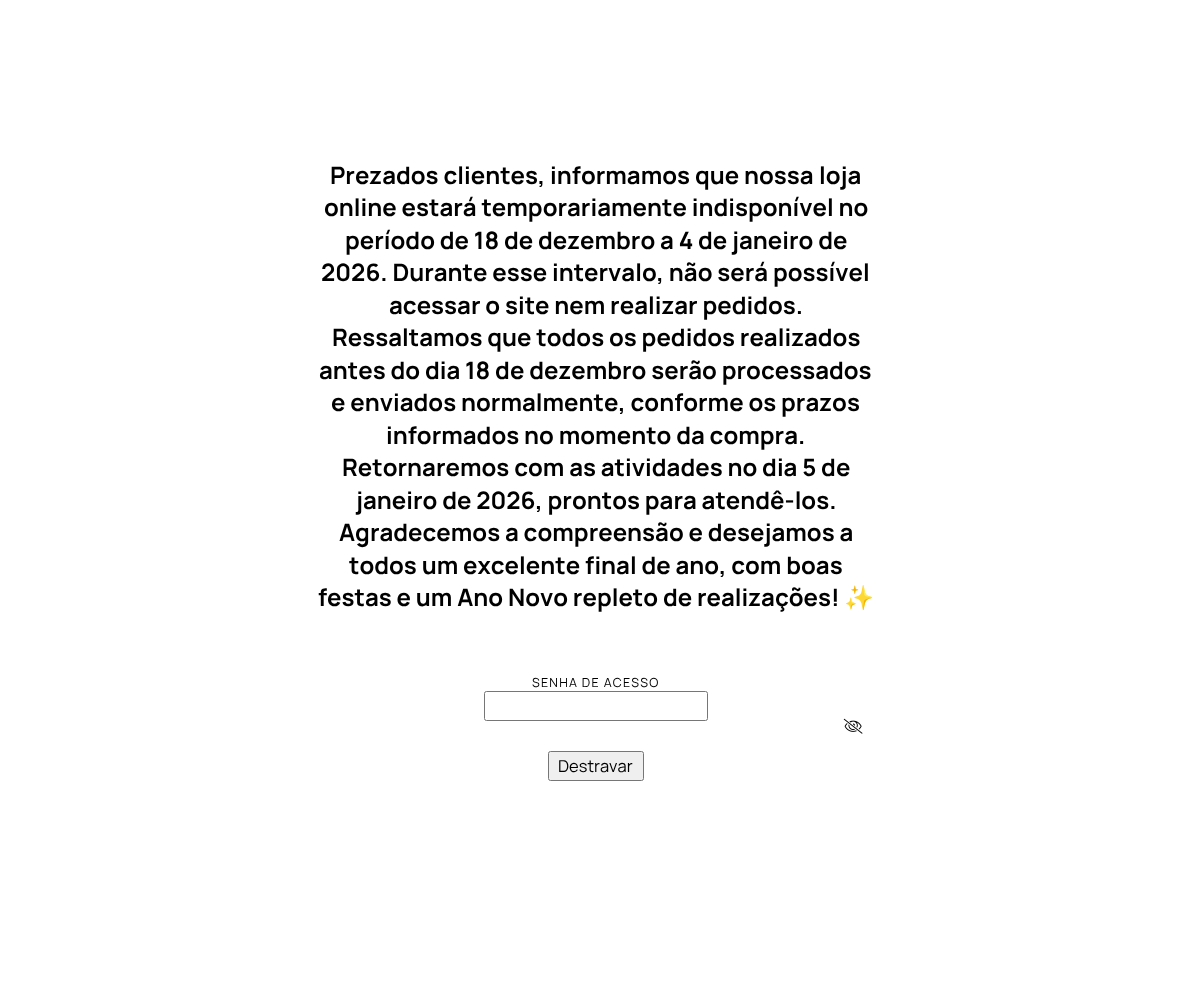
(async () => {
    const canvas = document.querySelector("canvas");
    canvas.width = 1191;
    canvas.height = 983;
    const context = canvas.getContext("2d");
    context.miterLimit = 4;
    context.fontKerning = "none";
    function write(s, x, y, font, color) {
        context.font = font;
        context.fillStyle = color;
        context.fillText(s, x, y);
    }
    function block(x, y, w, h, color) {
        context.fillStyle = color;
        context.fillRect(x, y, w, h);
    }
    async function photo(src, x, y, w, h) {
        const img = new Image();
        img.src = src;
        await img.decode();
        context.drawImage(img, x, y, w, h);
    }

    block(0, 0, 1191, 983, "rgb(255, 255, 255)");
    write("Prezados clientes, informamos que nossa", 330, 184, "bold 24px Manrope", "rgb(0, 0, 0)");
    write("loja", 819, 184, "bold 24px Manrope", "rgb(0, 0, 0)");
    write("online estará temporariamente indisponível no", 324, 216, "bold 24px Manrope", "rgb(0, 0, 0)");
    write("período de 18 de dezembro a 4 de janeiro de", 345, 249, "bold 24px Manrope", "rgb(0, 0, 0)");
    write("2026. Durante esse intervalo, não será possível", 321, 281, "bold 24px Manrope", "rgb(0, 0, 0)");
    write("acessar o site nem realizar pedidos.", 389, 314, "bold 24px Manrope", "rgb(0, 0, 0)");
    write("Ressaltamos que todos os pedidos realizados", 332, 346, "bold 24px Manrope", "rgb(0, 0, 0)");
    write("antes do dia 18 de dezembro serão processados", 319, 379, "bold 24px Manrope", "rgb(0, 0, 0)");
    write("e enviados normalmente, conforme os prazos", 331, 411, "bold 24px Manrope", "rgb(0, 0, 0)");
    write("informados no momento da compra.", 386, 444, "bold 24px Manrope", "rgb(0, 0, 0)");
    write("Retornaremos com as atividades no dia 5 de", 342, 476, "bold 24px Manrope", "rgb(0, 0, 0)");
    write("janeiro de 2026, prontos para atendê-los.", 356, 509, "bold 24px Manrope", "rgb(0, 0, 0)");
    write("Agradecemos a compreensão e desejamos a", 339, 541, "bold 24px Manrope", "rgb(0, 0, 0)");
    write("todos um excelente final de ano, com boas", 349, 574, "bold 24px Manrope", "rgb(0, 0, 0)");
    write("festas e um Ano Novo repleto de realizações!", 318, 606, "bold 24px Manrope", "rgb(0, 0, 0)");
    write("✨", 844, 606, "bold 24px Noto Color Emoji", "rgb(0, 0, 0)");
    context.letterSpacing = "1.25px";
    write("SENHA DE ACESSO", 532, 687, "12.5px Manrope", "rgb(0, 0, 0)");
    context.beginPath();
    context.roundRect(484.5, 691.5, 223, 29, 2);
    context.strokeStyle = "rgb(118, 118, 118)";
    context.stroke();
    await photo("media/1.png", 843, 718, 20, 16);
    context.fillStyle = "rgb(239, 239, 239)";
    context.beginPath();
    context.roundRect(548.5, 751.5, 95, 29, 2);
    context.fill();
    context.stroke();
    context.letterSpacing = "0px";
    write("Destravar", 558, 772, "16.5px Manrope", "rgb(0, 0, 0)");
})();
